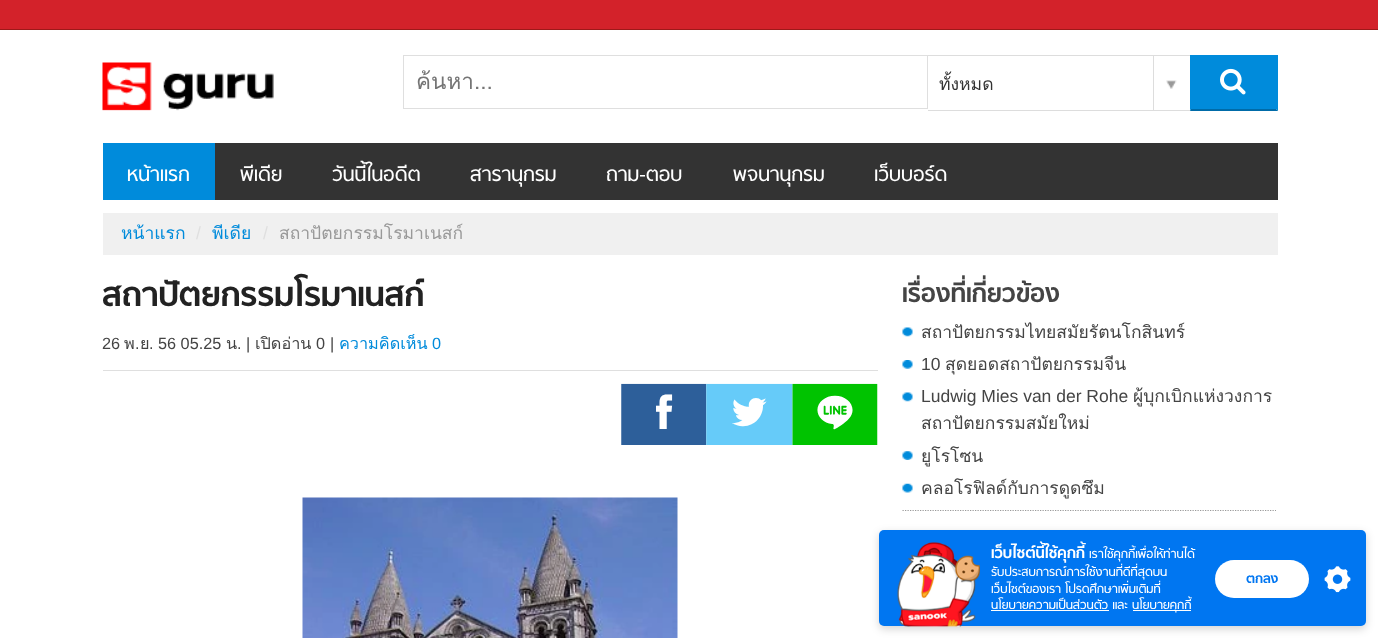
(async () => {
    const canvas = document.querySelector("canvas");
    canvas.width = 1378;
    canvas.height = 638;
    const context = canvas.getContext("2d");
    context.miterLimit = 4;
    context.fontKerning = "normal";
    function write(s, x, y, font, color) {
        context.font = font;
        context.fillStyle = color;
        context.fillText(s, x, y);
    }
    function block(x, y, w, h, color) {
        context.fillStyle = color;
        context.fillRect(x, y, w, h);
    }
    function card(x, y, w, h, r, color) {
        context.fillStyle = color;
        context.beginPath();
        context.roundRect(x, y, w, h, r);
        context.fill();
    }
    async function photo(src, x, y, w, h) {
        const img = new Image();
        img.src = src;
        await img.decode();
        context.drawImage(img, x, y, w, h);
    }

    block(0, 0, 1378, 638, "rgb(255, 255, 255)");
    block(0, 0, 1378, 29, "rgb(211, 34, 42)");
    block(0, 29, 1378, 1, "rgb(157, 25, 25)");
    await photo("media/1.png", 102, 62, 172, 49);
    context.strokeStyle = "rgb(223, 223, 223)";
    context.strokeRect(403.5, 55.5, 524, 53);
    context.save();
    context.beginPath();
    context.rect(416, 63, 498, 36);
    context.clip();
    write("ค้นหา...", 416, 89, "22.5px Loma", "rgb(117, 117, 117)");
    context.restore();
    block(928, 55, 262, 1, "rgb(221, 221, 221)");
    block(928, 110, 262, 1, "rgb(221, 221, 221)");
    write("ทั้งหมด", 939, 90, "17.5px Loma", "rgb(51, 51, 51)");
    await photo("media/2.png", 1166, 80, 11, 9);
    block(1153, 56, 1, 54, "rgb(221, 221, 221)");
    block(1191, 56, 85, 53, "rgb(0, 139, 219)");
    block(1190, 55, 88, 1, "rgb(0, 139, 219)");
    context.beginPath();
    context.moveTo(1278, 55);
    context.lineTo(1278, 111);
    context.lineTo(1276, 109);
    context.lineTo(1276, 56);
    context.closePath();
    context.fill();
    context.fillStyle = "rgb(0, 107, 168)";
    context.beginPath();
    context.moveTo(1278, 111);
    context.lineTo(1190, 111);
    context.lineTo(1191, 109);
    context.lineTo(1276, 109);
    context.closePath();
    context.fill();
    context.fillStyle = "rgb(0, 139, 219)";
    context.beginPath();
    context.moveTo(1190, 111);
    context.lineTo(1190, 55);
    context.lineTo(1191, 56);
    context.lineTo(1191, 109);
    context.closePath();
    context.fill();
    await photo("media/3.png", 1220, 68, 26, 27);
    block(215, 143, 1063, 57, "rgb(51, 51, 51)");
    block(103, 143, 112, 57, "rgb(0, 139, 219)");
    write("หน้าแรก", 127, 181, "22.5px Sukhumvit", "rgb(255, 255, 255)");
    write("พีเดีย", 240, 181, "22.5px Sukhumvit", "rgb(255, 255, 255)");
    write("วันนี้ในอดีต", 332, 181, "22.5px Sukhumvit", "rgb(255, 255, 255)");
    write("สารานุกรม", 470, 181, "22.5px Sukhumvit", "rgb(255, 255, 255)");
    write("ถาม-ตอบ", 606, 181, "22.5px Sukhumvit", "rgb(255, 255, 255)");
    write("พจนานุกรม", 733, 181, "22.5px Sukhumvit", "rgb(255, 255, 255)");
    write("เว็บบอร์ด", 874, 181, "22.5px Sukhumvit", "rgb(255, 255, 255)");
    block(103, 213, 1175, 42, "rgb(240, 240, 240)");
    write("หน้าแรก", 121, 239, "17.5px Loma", "rgb(0, 139, 219)");
    write("/", 196, 239, "17.5px Liberation Sans", "rgb(223, 223, 223)");
    write("พีเดีย", 212, 239, "17.5px Loma", "rgb(0, 139, 219)");
    write("/", 263, 239, "17.5px Liberation Sans", "rgb(223, 223, 223)");
    write("สถาปัตยกรรมโรมาเนสก์", 279, 239, "17.5px Loma", "rgb(153, 153, 153)");
    write("สถาปัตยกรรมโรมาเนสก์", 102, 306, "bold 37.5px Sukhumvit", "rgb(34, 34, 34)");
    block(103, 370, 775, 1, "rgb(223, 223, 223)");
    write("26", 102, 349, "16.25px Liberation Sans", "rgb(68, 68, 68)");
    write("พ", 124, 349, "16.25px Loma", "rgb(68, 68, 68)");
    write(".", 135, 349, "16.25px Liberation Sans", "rgb(68, 68, 68)");
    write("ย", 140, 349, "16.25px Loma", "rgb(68, 68, 68)");
    write(". 56 05.25", 149, 349, "16.25px Liberation Sans", "rgb(68, 68, 68)");
    write("น", 226, 349, "16.25px Loma", "rgb(68, 68, 68)");
    write(". |", 237, 349, "16.25px Liberation Sans", "rgb(68, 68, 68)");
    write("เปิดอ่าน", 255, 349, "16.25px Loma", "rgb(68, 68, 68)");
    write("0", 316, 349, "16.25px Liberation Sans", "rgb(68, 68, 68)");
    write("|", 330, 349, "16.25px Liberation Sans", "rgb(68, 68, 68)");
    write("ความคิดเห็น", 339, 349, "16.25px Loma", "rgb(0, 139, 219)");
    write("0", 432, 349, "16.25px Liberation Sans", "rgb(0, 139, 219)");
    await photo("media/4.png", 621, 383, 257, 62);
    await photo("media/5.png", 302, 497, 376, 141);
    context.beginPath();
    context.moveTo(902.5, 510.5);
    context.lineTo(1276, 510.5);
    context.strokeStyle = "rgb(153, 153, 153)";
    context.lineWidth = 1.2;
    context.setLineDash([1.25, 1.25]);
    context.stroke();
    write("เรื่องที่เกี่ยวข้อง", 902, 302, "bold 28.75px Sukhumvit", "rgb(68, 68, 68)");
    await photo("media/6.png", 902, 327, 11, 10);
    write("สถาปัตยกรรมไทยสมัยรัตนโกสินทร์", 921, 338, "17.5px Loma", "rgb(68, 68, 68)");
    await photo("media/7.png", 902, 360, 11, 9);
    write("10", 921, 370, "17.5px Liberation Sans", "rgb(68, 68, 68)");
    write("สุดยอดสถาปัตยกรรมจีน", 945, 370, "17.5px Loma", "rgb(68, 68, 68)");
    await photo("media/6.png", 902, 392, 11, 10);
    write("Ludwig Mies van der Rohe", 921, 402, "17.5px Liberation Sans", "rgb(68, 68, 68)");
    write("ผู้บุกเบิกแห่งวงการ", 1133, 402, "17.5px Loma", "rgb(68, 68, 68)");
    write("สถาปัตยกรรมสมัยใหม่", 921, 429, "17.5px Loma", "rgb(68, 68, 68)");
    await photo("media/8.png", 902, 451, 11, 9);
    write("ยูโรโซน", 921, 462, "17.5px Loma", "rgb(68, 68, 68)");
    await photo("media/9.png", 902, 483, 11, 10);
    write("คลอโรฟิลด์กับการดูดซึม", 921, 494, "17.5px Loma", "rgb(68, 68, 68)");
    await photo("media/10.png", 904, 626, 7, 1);
    context.fillStyle = "rgba(0, 0, 0, 0.17)";
    context.filter = "blur(4px)";
    context.beginPath();
    context.roundRect(879, 533, 487, 96, 5);
    context.fill();
    context.filter = "none";
    card(879, 530, 487, 96, 5, "rgb(0, 118, 241)");
    await photo("media/11.png", 897, 542, 83, 85);
    write("เว็บไซต์นี้ใช้คุกกี้", 991, 558, "bold 17.25px 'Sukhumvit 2'", "rgb(255, 255, 255)");
    write("เราใช้คุกกี้เพื่อให้ท่านได้", 1089, 558, "13.75px 'Sukhumvit 2'", "rgb(255, 255, 255)");
    write("รับประสบการณ์การใช้งานที่ดีที่สุดบน", 991, 576, "13.75px 'Sukhumvit 2'", "rgb(255, 255, 255)");
    write("เว็บไซต์ของเรา โปรดศึกษาเพิ่มเติมที่", 991, 593, "13.75px 'Sukhumvit 2'", "rgb(255, 255, 255)");
    write("นโยบายความเป็นส่วนตัว และ", 991, 609, "13.75px 'Sukhumvit 2'", "rgb(255, 255, 255)");
    block(991, 610, 118, 1, "rgb(255, 255, 255)");
    block(1133, 610, 58, 1, "rgb(255, 255, 255)");
    write("นโยบายคุกกี้", 1132, 609, "13.75px 'Sukhumvit 2'", "rgb(255, 255, 255)");
    card(1215, 560, 94, 38, 19, "rgb(255, 255, 255)");
    write("ตกลง", 1246, 583, "bold 15px 'Sukhumvit 2'", "rgb(0, 118, 241)");
    await photo("media/12.png", 1324, 566, 27, 27);
})();
